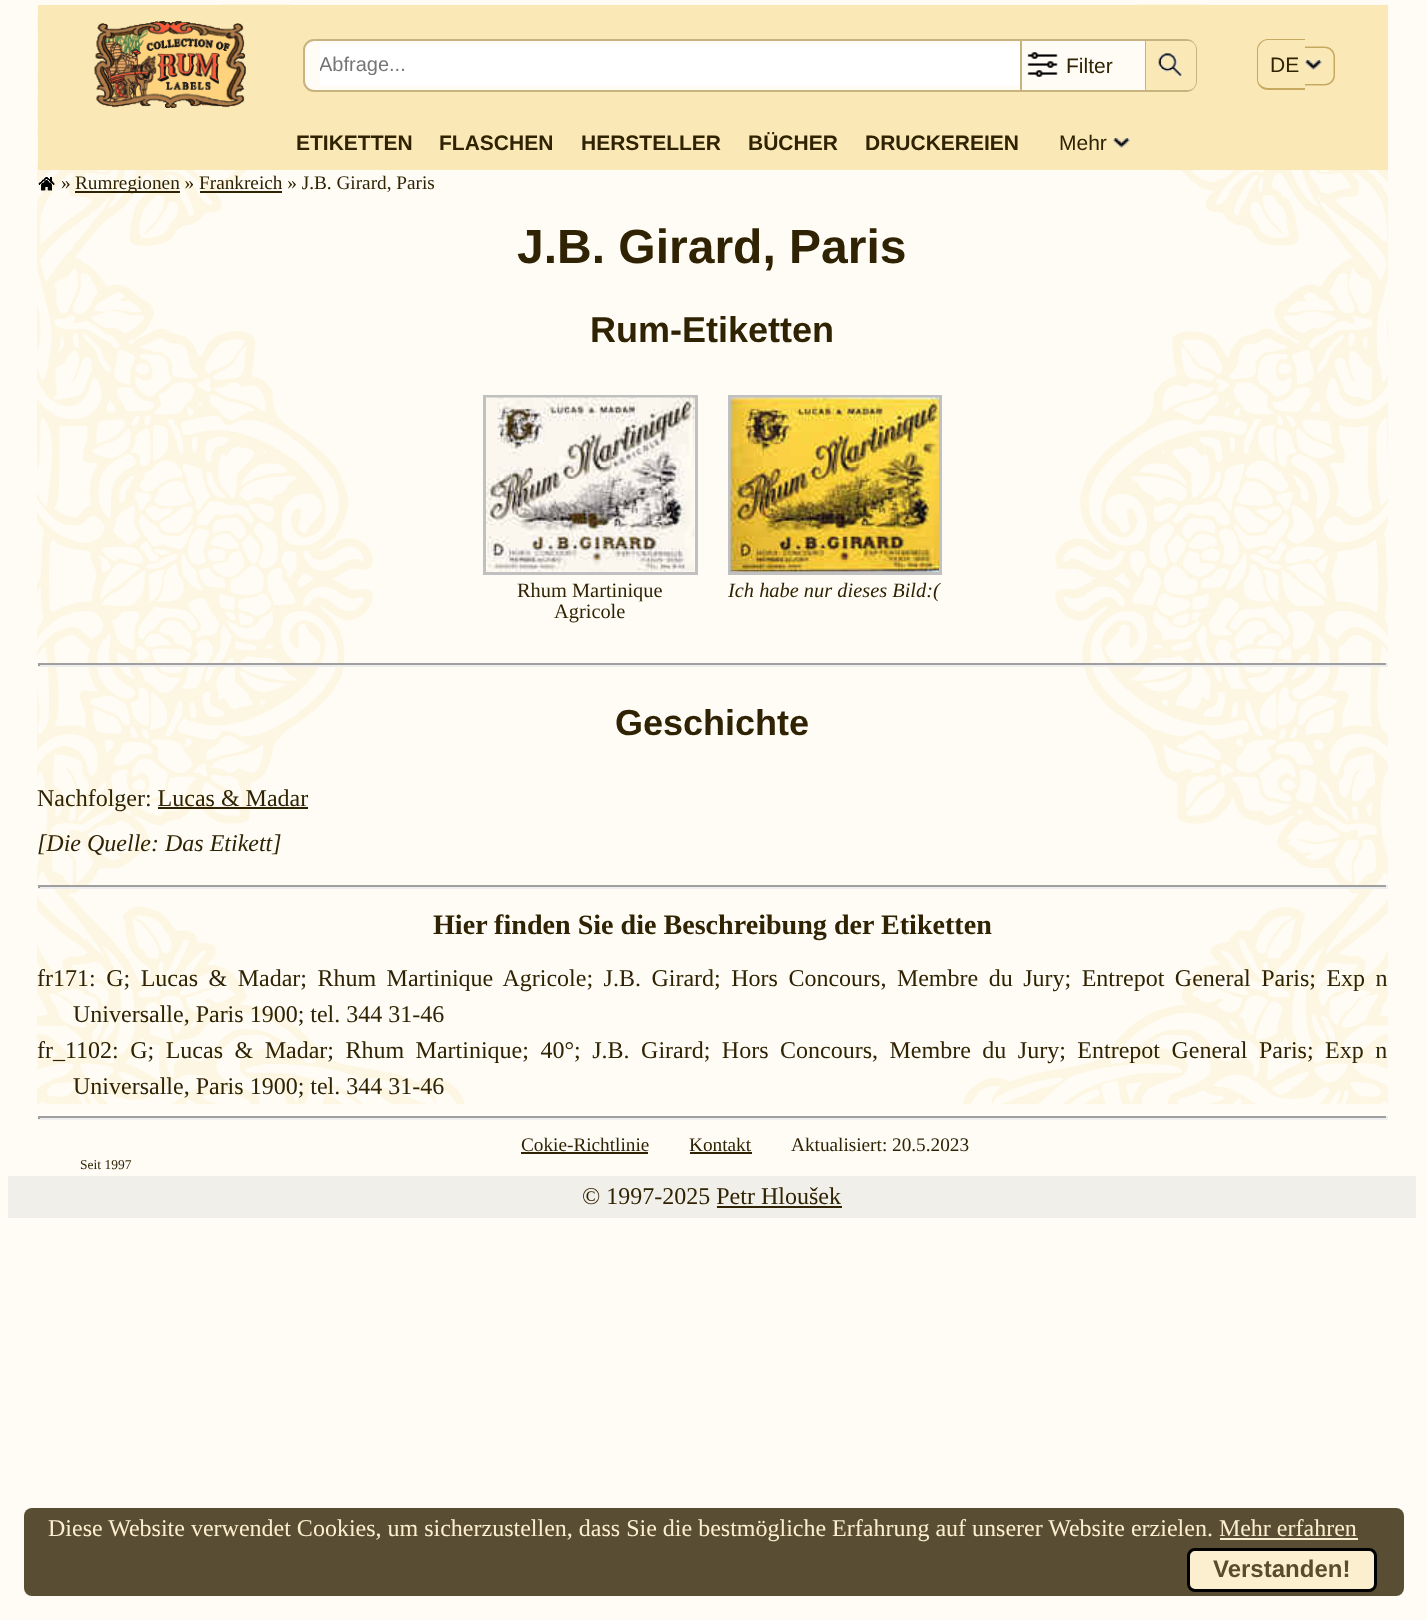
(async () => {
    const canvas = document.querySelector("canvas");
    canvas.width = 1427;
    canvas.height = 1620;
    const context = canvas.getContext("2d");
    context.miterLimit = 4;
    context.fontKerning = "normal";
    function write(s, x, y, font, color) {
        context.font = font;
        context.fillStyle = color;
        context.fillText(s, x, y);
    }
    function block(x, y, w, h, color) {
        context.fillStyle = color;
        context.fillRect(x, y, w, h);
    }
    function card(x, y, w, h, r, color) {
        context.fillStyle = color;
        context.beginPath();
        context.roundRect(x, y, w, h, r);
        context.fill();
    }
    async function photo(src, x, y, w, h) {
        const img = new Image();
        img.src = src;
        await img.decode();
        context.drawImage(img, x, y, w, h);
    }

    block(0, 0, 1427, 1620, "rgb(254, 252, 245)");
    await photo("media/1.png", 37, 4, 1351, 1100);
    block(38, 5, 1350, 165, "rgb(251, 232, 183)");
    await photo("media/2.png", 94, 21, 152, 87);
    card(303, 39, 894, 53, 11, "rgb(254, 252, 245)");
    context.beginPath();
    context.roundRect(304, 40, 892, 51, 10);
    context.strokeStyle = "rgba(145, 106, 8, 0.5)";
    context.lineWidth = 2;
    context.stroke();
    block(320, 44, 700, 42, "rgb(255, 255, 255)");
    context.save();
    context.beginPath();
    context.rect(320, 53, 700, 22);
    context.clip();
    write("Abfrage...", 319, 71, "20px Liberation Sans", "rgb(117, 117, 117)");
    context.restore();
    block(1145, 41, 1, 49, "rgb(200, 179, 127)");
    block(1020, 41, 2, 49, "rgb(200, 179, 127)");
    await photo("media/3.png", 1027, 52, 31, 25);
    write("Filter", 1066, 73, "21px Liberation Sans", "rgb(48, 35, 3)");
    context.fillStyle = "rgb(251, 232, 183)";
    context.beginPath();
    context.roundRect(1146, 41, 50, 49, [0, 8, 8, 0]);
    context.fill();
    await photo("media/4.png", 1158, 53, 24, 23);
    context.fillStyle = "rgb(198, 169, 96)";
    context.beginPath();
    context.moveTo(1268, 39);
    context.lineTo(1305, 39);
    context.lineTo(1305, 90);
    context.lineTo(1268, 90);
    context.bezierCurveTo(1262, 90, 1257, 85, 1257, 80);
    context.lineTo(1257, 50);
    context.bezierCurveTo(1257, 44, 1262, 39, 1268, 39);
    context.closePath();
    context.moveTo(1268, 40);
    context.lineTo(1305, 40);
    context.lineTo(1305, 88);
    context.lineTo(1268, 88);
    context.bezierCurveTo(1263, 88, 1258, 84, 1258, 80);
    context.lineTo(1258, 50);
    context.bezierCurveTo(1258, 45, 1263, 40, 1268, 40);
    context.closePath();
    context.fill("evenodd");
    write("DE", 1270, 72, "21px Liberation Sans", "rgb(48, 35, 3)");
    context.fillStyle = "rgb(198, 169, 96)";
    context.beginPath();
    context.moveTo(1305, 46.5);
    context.lineTo(1324.5, 46.5);
    context.bezierCurveTo(1330.5, 46.5, 1335, 51, 1335, 57);
    context.lineTo(1335, 75);
    context.bezierCurveTo(1335, 81, 1330.5, 85.5, 1324.5, 85.5);
    context.lineTo(1305, 85.5);
    context.closePath();
    context.moveTo(1305, 48);
    context.lineTo(1324.5, 48);
    context.bezierCurveTo(1329.5, 48, 1333.5, 52, 1333.5, 57);
    context.lineTo(1333.5, 75);
    context.bezierCurveTo(1333.5, 80, 1329.5, 84, 1324.5, 84);
    context.lineTo(1305, 84);
    context.closePath();
    context.fill("evenodd");
    await photo("media/5.png", 1305, 60, 17, 10);
    write("ETIKETTEN", 296, 150, "bold 21px Liberation Sans", "rgb(48, 35, 3)");
    write("FLASCHEN", 439, 150, "bold 21px Liberation Sans", "rgb(48, 35, 3)");
    write("HERSTELLER", 581, 150, "bold 21px Liberation Sans", "rgb(48, 35, 3)");
    write("BÜCHER", 748, 150, "bold 21px Liberation Sans", "rgb(48, 35, 3)");
    write("DRUCKEREIEN", 865, 150, "bold 21px Liberation Sans", "rgb(48, 35, 3)");
    write("Mehr", 1059, 150, "21px Liberation Sans", "rgb(48, 35, 3)");
    await photo("media/6.png", 1113, 138, 17, 10);
    await photo("media/7.png", 38, 177, 17, 14);
    write("»", 61, 189, "19.25px Liberation Serif", "rgb(48, 35, 3)");
    block(75, 191, 105, 2, "rgb(48, 35, 3)");
    write("Rumregionen » Frankreich » J.B. Girard, Paris", 75, 189, "19.25px Liberation Serif", "rgb(48, 35, 3)");
    block(200, 191, 82, 2, "rgb(48, 35, 3)");
    write("J.B. Girard, Paris", 517, 263, "bold 48px Liberation Sans", "rgb(48, 35, 3)");
    write("Rum-Etiketten", 590, 342, "bold 36px Liberation Sans", "rgb(48, 35, 3)");
    context.strokeStyle = "rgb(192, 192, 192)";
    context.lineWidth = 3;
    context.strokeRect(484.5, 396.5, 212, 177);
    await photo("media/8.png", 486, 397, 209, 175);
    write("Rhum Martinique", 517, 597, "20.4px Liberation Serif", "rgb(48, 35, 3)");
    write("Agricole", 554, 618, "20.4px Liberation Serif", "rgb(48, 35, 3)");
    context.strokeRect(729.5, 396.5, 211, 177);
    await photo("media/9.png", 730, 397, 209, 175);
    write("Ich habe nur dieses Bild:(", 728, 597, "italic 20.4px Liberation Serif", "rgb(48, 35, 3)");
    block(38, 663, 1350, 2, "rgb(159, 159, 159)");
    block(1386, 663, 2, 3, "rgb(238, 238, 238)");
    block(38, 665, 1350, 2, "rgb(238, 238, 238)");
    block(38, 663, 2, 3, "rgb(159, 159, 159)");
    write("Geschichte", 615, 735, "bold 36px Liberation Sans", "rgb(48, 35, 3)");
    write("Nachfolger: Lucas & Madar", 37, 806, "24px Liberation Serif", "rgb(48, 35, 3)");
    block(158, 807, 150, 2, "rgb(48, 35, 3)");
    write("[Die Quelle: Das Etikett]", 37, 851, "italic 24px Liberation Serif", "rgb(48, 35, 3)");
    block(38, 885, 1350, 2, "rgb(159, 159, 159)");
    block(1386, 885, 2, 3, "rgb(238, 238, 238)");
    block(38, 887, 1350, 2, "rgb(238, 238, 238)");
    block(38, 885, 2, 3, "rgb(159, 159, 159)");
    write("Hier finden Sie die Beschreibung der Etiketten", 433, 934, "bold 28.1px Liberation Serif", "rgb(48, 35, 3)");
    write("fr171", 37, 986, "24px Liberation Serif", "rgb(48, 35, 3)");
    context.wordSpacing = "4.5px";
    write(": G; Lucas & Madar; Rhum Martinique Agricole; J.B. Girard; Hors Concours, Membre du Jury; Entrepot General Paris; Exp n", 89, 986, "24px Liberation Serif", "rgb(48, 35, 3)");
    context.wordSpacing = "0px";
    write("Universalle, Paris 1900; tel. 344 31-46", 73, 1022, "24px Liberation Serif", "rgb(48, 35, 3)");
    write("fr_1102", 37, 1058, "24px Liberation Serif", "rgb(48, 35, 3)");
    context.wordSpacing = "5.5px";
    write(": G; Lucas & Madar; Rhum Martinique; 40°; J.B. Girard; Hors Concours, Membre du Jury; Entrepot General Paris; Exp n", 112, 1058, "24px Liberation Serif", "rgb(48, 35, 3)");
    context.wordSpacing = "0px";
    write("Universalle, Paris 1900; tel. 344 31-46", 73, 1094, "24px Liberation Serif", "rgb(48, 35, 3)");
    block(38, 1116, 1350, 2, "rgb(159, 159, 159)");
    block(1386, 1116, 2, 3, "rgb(238, 238, 238)");
    block(38, 1118, 1350, 2, "rgb(238, 238, 238)");
    block(38, 1116, 2, 3, "rgb(159, 159, 159)");
    write("Cokie-Richtlinie", 521, 1151, "19.25px Liberation Serif", "rgb(48, 35, 3)");
    block(521, 1152, 127, 2, "rgb(48, 35, 3)");
    write("Kontakt", 689, 1151, "19.25px Liberation Serif", "rgb(48, 35, 3)");
    block(690, 1152, 62, 2, "rgb(48, 35, 3)");
    write("Aktualisiert: 20.5.2023", 791, 1151, "19.25px Liberation Serif", "rgb(48, 35, 3)");
    write("Seit 1997", 80, 1169, "13.5px Liberation Serif", "rgb(48, 35, 3)");
    block(8, 1176, 1408, 42, "rgb(241, 239, 233)");
    write("© 1997-2025 Petr Hloušek", 582, 1204, "24px Liberation Serif", "rgb(48, 35, 3)");
    block(717, 1206, 125, 2, "rgb(48, 35, 3)");
    card(24, 1508, 1380, 88, 8, "rgb(89, 78, 51)");
    write("Diese Website verwendet Cookies, um sicherzustellen, dass Sie die bestmögliche Erfahrung auf unserer Website erzielen. Mehr erfahren", 48, 1536, "24px Liberation Serif", "rgb(252, 239, 207)");
    block(1220, 1538, 138, 2, "rgb(252, 239, 207)");
    context.beginPath();
    context.roundRect(1188.5, 1549.5, 187, 41, 6.5);
    context.fill();
    context.strokeStyle = "rgb(0, 0, 0)";
    context.stroke();
    write("Verstanden!", 1213, 1577, "bold 24px Liberation Sans", "rgb(89, 76, 44)");
})();
